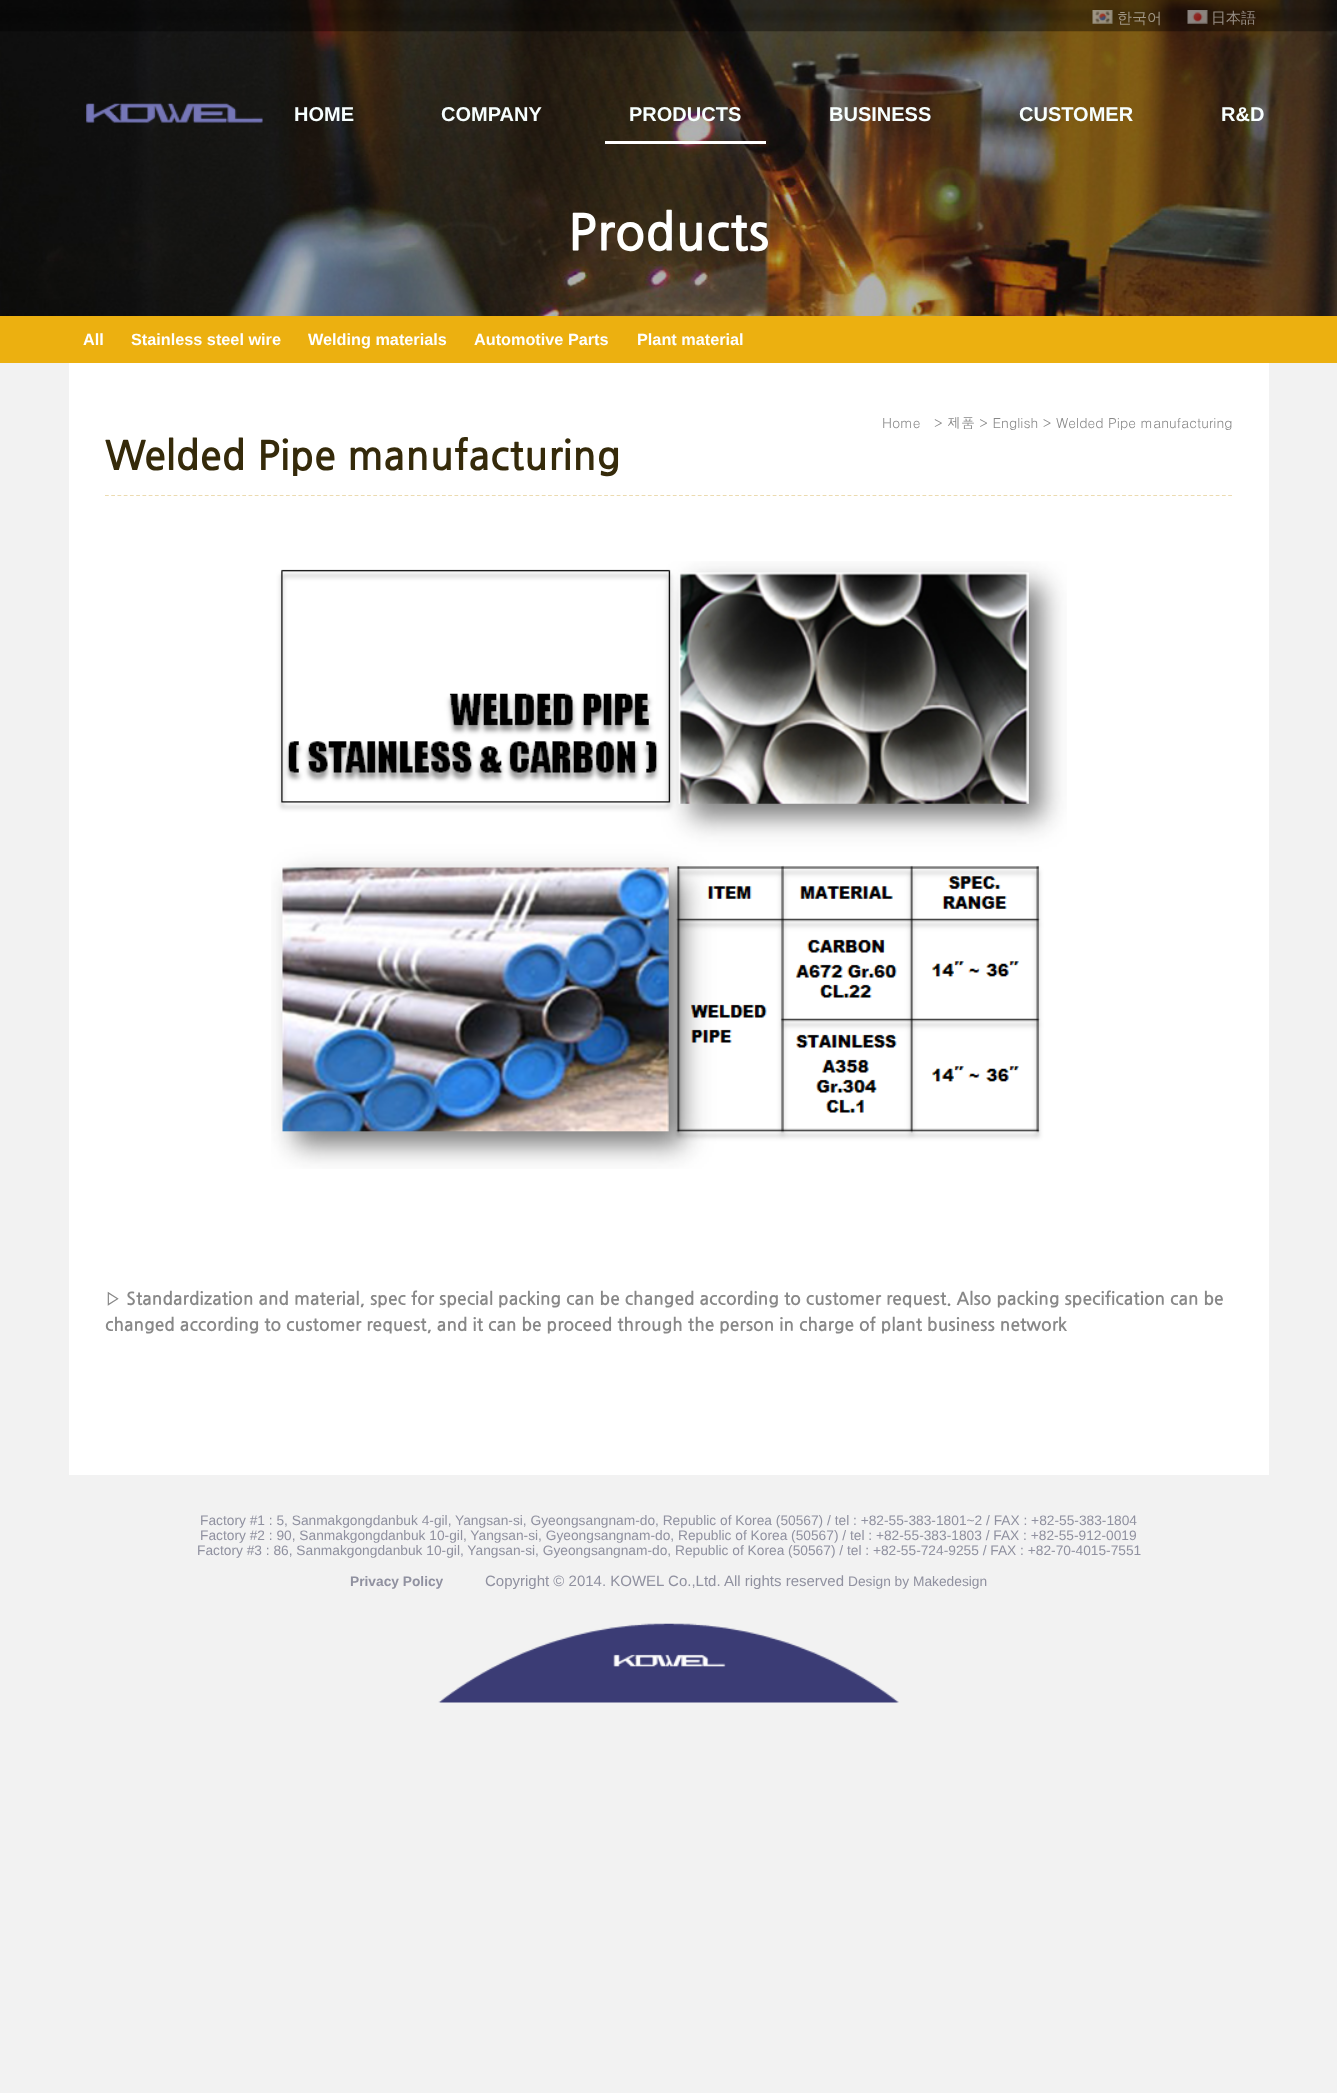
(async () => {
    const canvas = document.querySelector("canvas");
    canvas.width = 1337;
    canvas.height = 2093;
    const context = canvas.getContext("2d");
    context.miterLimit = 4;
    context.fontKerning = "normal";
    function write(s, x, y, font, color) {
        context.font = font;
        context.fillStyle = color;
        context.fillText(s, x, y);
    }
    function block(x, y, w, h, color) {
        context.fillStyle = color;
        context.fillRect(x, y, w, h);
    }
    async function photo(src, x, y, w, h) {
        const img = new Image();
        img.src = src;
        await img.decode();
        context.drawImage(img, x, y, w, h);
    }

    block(0, 0, 1337, 2093, "rgb(242, 242, 242)");
    await photo("media/5.png", 0, 0, 1337, 316);
    await photo("media/1.png", 0, 0, 1337, 32);
    await photo("media/2.png", 1092, 10, 21, 14);
    write("한국어", 1117, 23, "500 15px WenQuanYi Zen Hei", "rgb(160, 150, 133)");
    await photo("media/3.png", 1187, 10, 21, 14);
    write("日本語", 1211, 23, "500 15px WenQuanYi Zen Hei", "rgb(149, 140, 132)");
    await photo("media/4.png", 86, 103, 177, 20);
    write("HOME", 294, 121, "bold 20px Liberation Sans", "rgb(247, 255, 255)");
    write("COMPANY", 441, 121, "bold 20px Liberation Sans", "rgb(247, 255, 255)");
    block(605, 141, 161, 3, "rgb(255, 255, 255)");
    write("PRODUCTS", 629, 121, "bold 20px Liberation Sans", "rgb(247, 255, 255)");
    write("BUSINESS", 829, 121, "bold 20px Liberation Sans", "rgb(247, 255, 255)");
    write("CUSTOMER", 1019, 121, "bold 20px Liberation Sans", "rgb(247, 255, 255)");
    write("R&D", 1221, 121, "bold 20px Liberation Sans", "rgb(247, 255, 255)");
    write("Products", 568, 248, "bold 50px NanumGothic", "rgb(255, 255, 255)");
    block(0, 316, 1337, 47, "rgb(236, 176, 16)");
    write("All", 83, 345, "bold 16.25px Liberation Sans", "rgb(255, 255, 255)");
    write("Stainless steel wire", 131, 345, "bold 16.25px Liberation Sans", "rgb(255, 255, 255)");
    write("Welding materials", 308, 345, "bold 16.25px Liberation Sans", "rgb(255, 255, 255)");
    write("Automotive Parts", 474, 345, "bold 16.25px Liberation Sans", "rgb(255, 255, 255)");
    write("Plant material", 637, 345, "bold 16.25px Liberation Sans", "rgb(255, 255, 255)");
    block(69, 363, 1200, 1112, "rgb(255, 255, 255)");
    write("Home", 882, 428, "13.75px Dotum", "rgb(136, 136, 136)");
    write("> 제품 > English > Welded Pipe manufacturing", 934, 428, "13.75px Dotum", "rgb(136, 136, 136)");
    context.beginPath();
    context.moveTo(105, 495.5);
    context.lineTo(1232.5, 495.5);
    context.strokeStyle = "rgb(236, 219, 176)";
    context.lineWidth = 1.2;
    context.setLineDash([3.75, 2.49]);
    context.stroke();
    write("Welded Pipe manufacturing", 105, 468, "bold 40px NanumGothic", "rgb(53, 42, 10)");
    await photo("media/6.png", 271, 561, 796, 608);
    write("▷ Standardization and material, spec for special packing can be changed according to customer request. Also packing specification can be", 105, 1304, "bold 17.5px NanumGothic", "rgb(136, 136, 136)");
    write("changed according to customer request, and it can be proceed through the person in charge of plant business network", 105, 1330, "bold 17.5px NanumGothic", "rgb(136, 136, 136)");
    await photo("media/7.png", 438, 1623, 461, 80);
    write("Factory #1 : 5, Sanmakgongdanbuk 4-gil, Yangsan-si, Gyeongsangnam-do, Republic of Korea (50567) / tel : +82-55-383-1801~2 / FAX : +82-55-383-1804", 200, 1525, "13.75px Liberation Sans", "rgb(144, 145, 160)");
    write("Factory #2 : 90, Sanmakgongdanbuk 10-gil, Yangsan-si, Gyeongsangnam-do, Republic of Korea (50567) / tel : +82-55-383-1803 / FAX : +82-55-912-0019", 200, 1540, "13.75px Liberation Sans", "rgb(144, 145, 160)");
    write("Factory #3 : 86, Sanmakgongdanbuk 10-gil, Yangsan-si, Gyeongsangnam-do, Republic of Korea (50567) / tel : +82-55-724-9255 / FAX : +82-70-4015-7551", 197, 1555, "13.75px Liberation Sans", "rgb(144, 145, 160)");
    write("Privacy Policy", 350, 1586, "bold 13.75px Liberation Sans", "rgb(144, 145, 160)");
    write("Copyright © 2014. KOWEL Co.,Ltd. All rights reserved", 485, 1586, "15px Liberation Sans", "rgb(144, 145, 160)");
    write("Design by Makedesign", 848, 1586, "13.75px Liberation Sans", "rgb(144, 145, 160)");
})();
